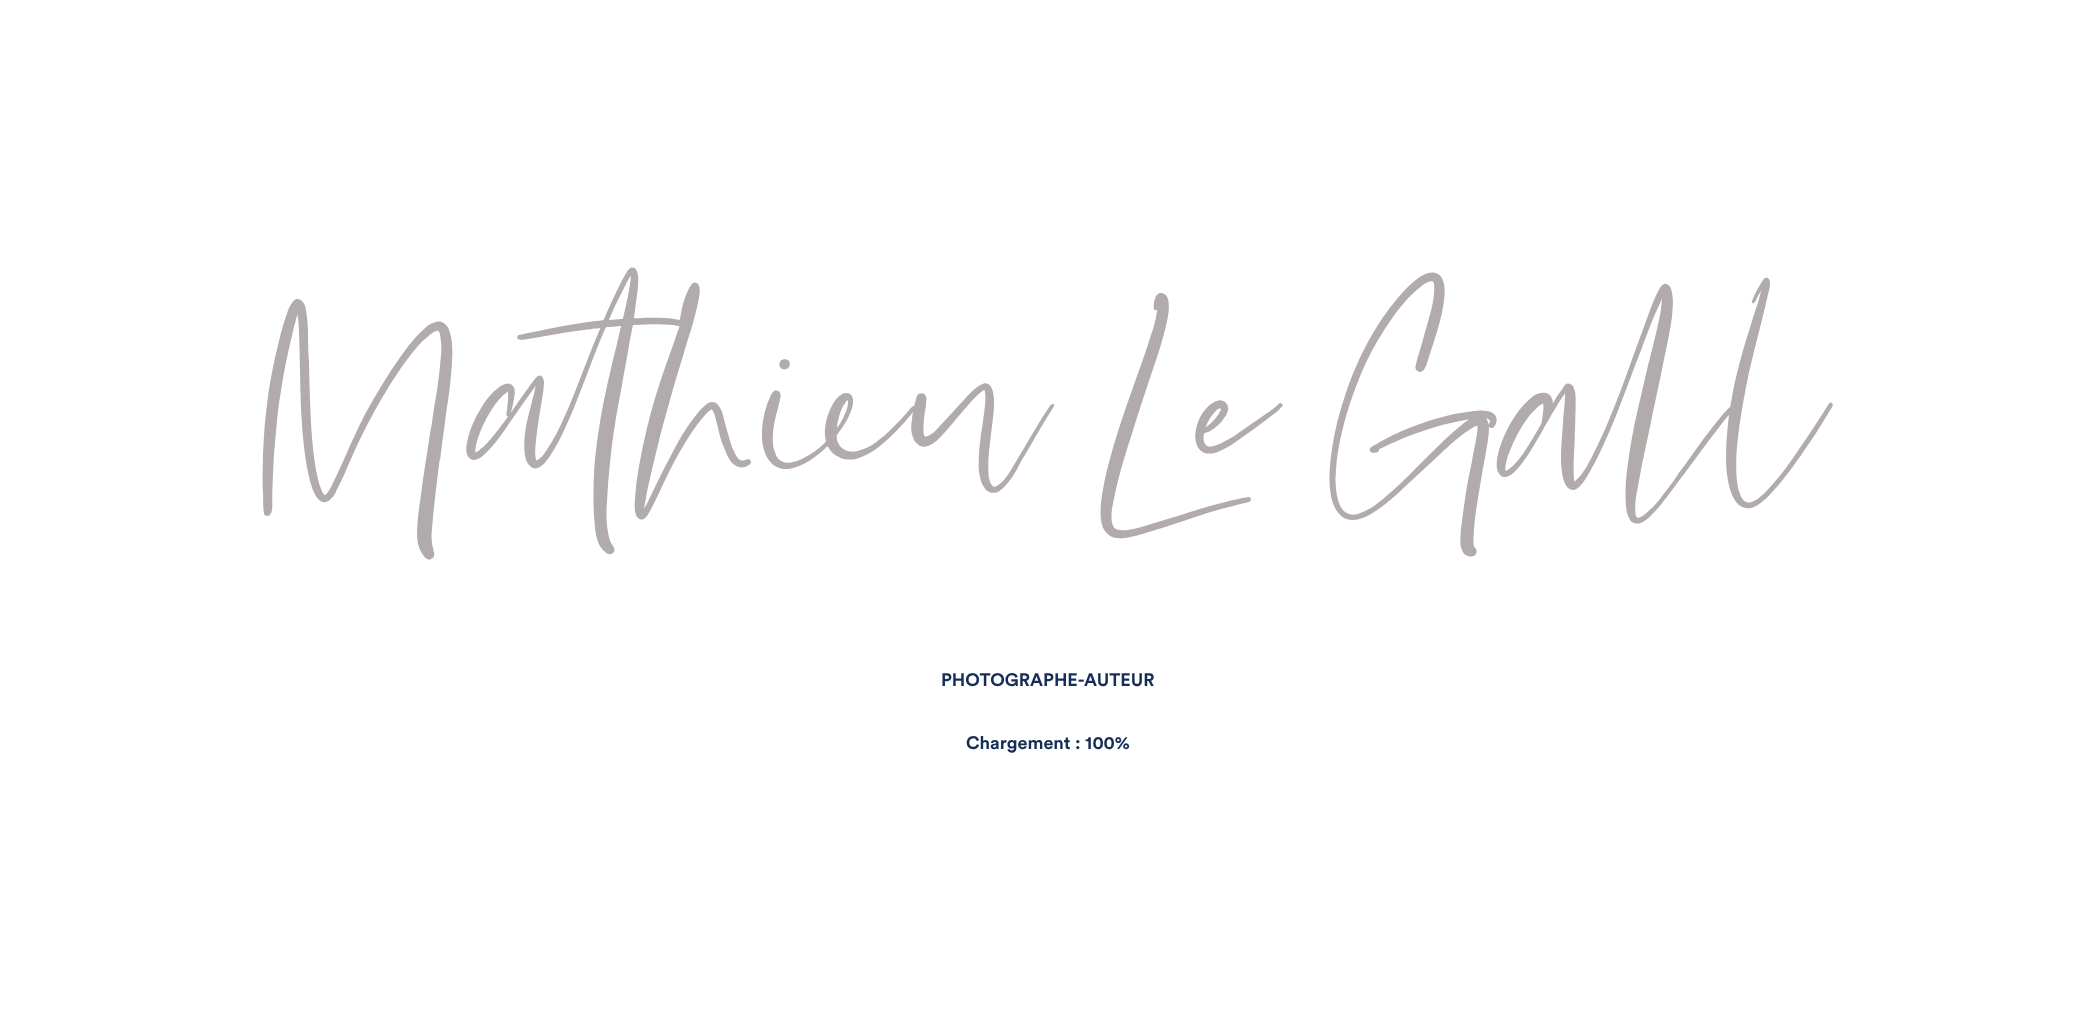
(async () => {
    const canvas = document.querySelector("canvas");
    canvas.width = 2096;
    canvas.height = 1022;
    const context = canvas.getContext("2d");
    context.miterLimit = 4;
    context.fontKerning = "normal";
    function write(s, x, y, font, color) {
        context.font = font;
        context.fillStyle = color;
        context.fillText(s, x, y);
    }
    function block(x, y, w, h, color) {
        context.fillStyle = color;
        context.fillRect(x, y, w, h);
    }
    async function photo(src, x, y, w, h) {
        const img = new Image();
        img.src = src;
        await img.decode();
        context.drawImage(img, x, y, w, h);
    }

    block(0, 0, 2096, 1022, "rgb(255, 255, 255)");
    await photo("media/1.png", 262, 267, 1571, 293);
    write("PHOTOGRAPHE-AUTEUR", 941, 686, "bold 18px Circular", "rgb(22, 45, 86)");
    write("Chargement : 100%", 966, 749, "bold 18px Circular", "rgb(22, 45, 86)");
})();
